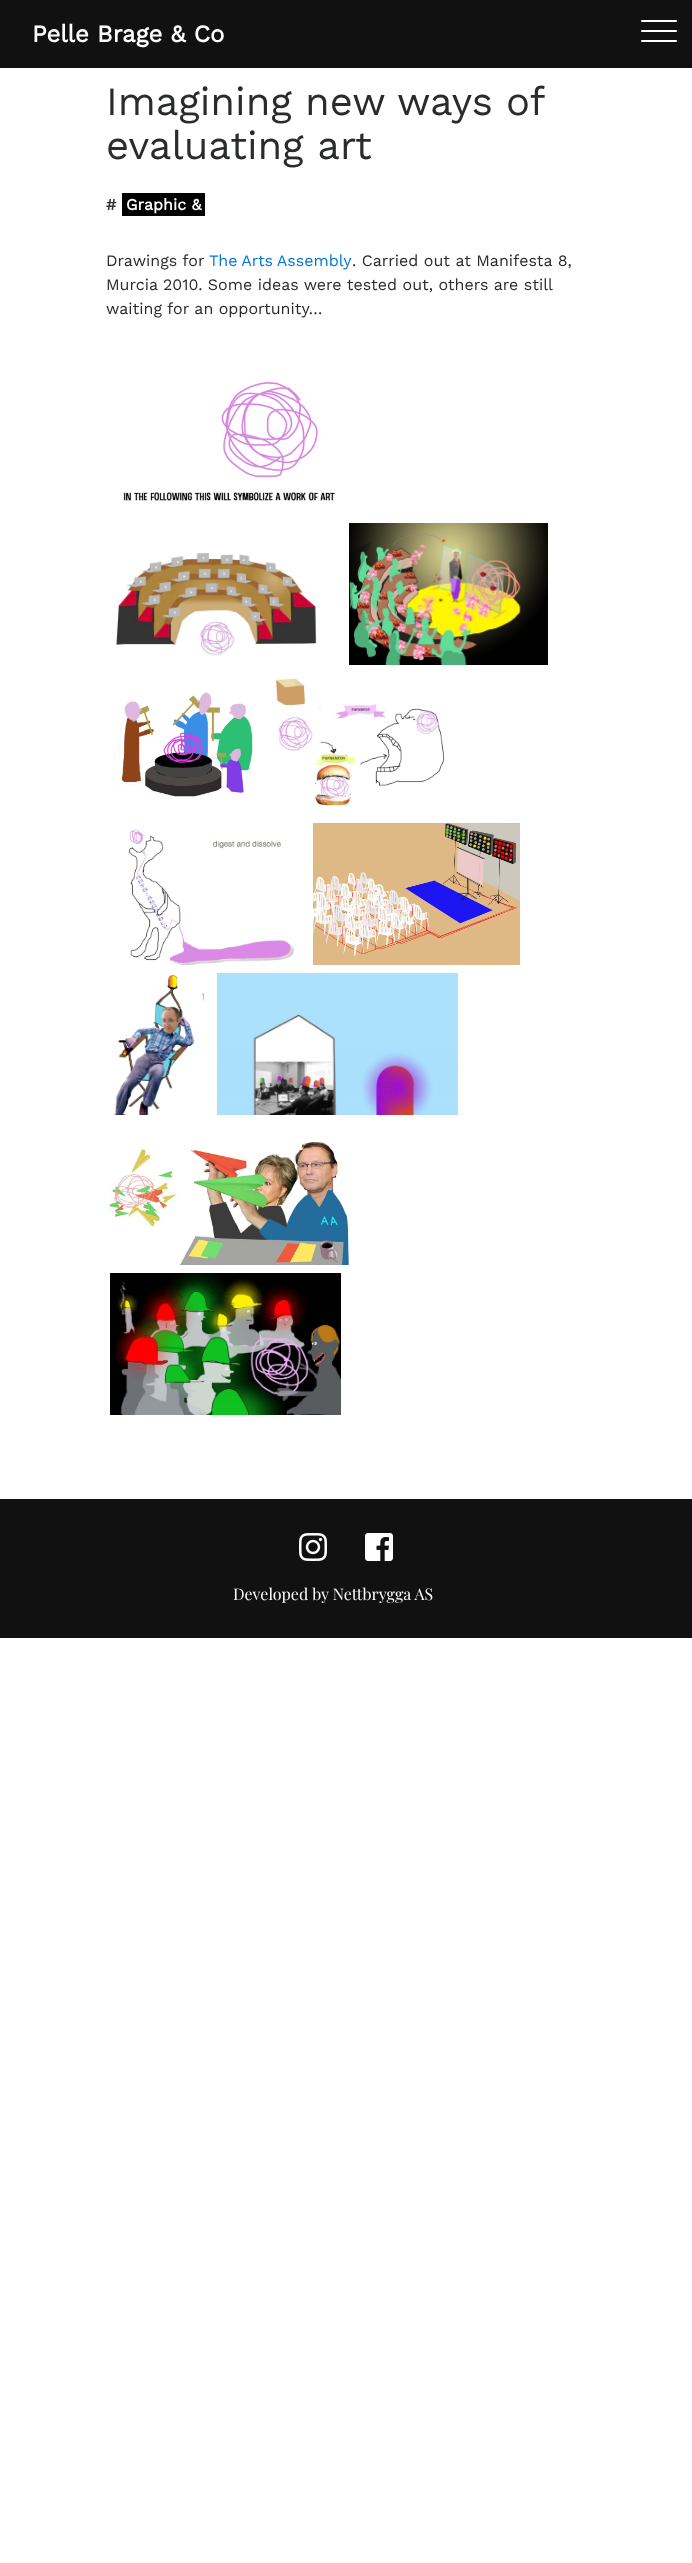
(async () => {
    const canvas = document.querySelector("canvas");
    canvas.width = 692;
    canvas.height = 2563;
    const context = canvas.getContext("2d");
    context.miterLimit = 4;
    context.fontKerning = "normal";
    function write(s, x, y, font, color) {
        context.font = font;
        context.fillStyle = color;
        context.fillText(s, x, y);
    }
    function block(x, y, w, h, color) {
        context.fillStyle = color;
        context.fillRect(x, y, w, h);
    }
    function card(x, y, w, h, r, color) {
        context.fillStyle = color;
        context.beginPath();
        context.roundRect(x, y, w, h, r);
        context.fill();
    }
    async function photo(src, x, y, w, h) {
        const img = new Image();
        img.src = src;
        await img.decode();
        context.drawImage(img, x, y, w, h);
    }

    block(0, 0, 692, 2563, "rgb(255, 255, 255)");
    block(0, 0, 692, 68, "rgb(17, 17, 17)");
    write("Pelle Brage & Co", 32, 42, "bold 24px Work Sans", "rgb(255, 255, 255)");
    card(641, 30, 36, 2, 1, "rgb(255, 255, 255)");
    card(641, 20, 36, 2, 1, "rgb(255, 255, 255)");
    card(641, 40, 36, 2, 1, "rgb(255, 255, 255)");
    context.wordSpacing = "-0.5px";
    write("Imagining new ways of", 106, 115, "40px Work Sans", "rgb(41, 43, 44)");
    context.wordSpacing = "0px";
    write("evaluating art", 106, 159, "40px Work Sans", "rgb(41, 43, 44)");
    write("#", 106, 210, "bold 16px Work Sans", "rgb(51, 51, 51)");
    block(122, 193, 83, 23, "rgb(1, 1, 1)");
    write("Graphic &", 126, 210, "bold 16px Work Sans", "rgb(255, 255, 255)");
    write("Drawings for", 106, 266, "16px Work Sans", "rgb(41, 43, 44)");
    context.wordSpacing = "-1px";
    write("The Arts Assembly", 209, 266, "16px Work Sans", "rgb(2, 117, 216)");
    context.wordSpacing = "0px";
    write(". Carried out at Manifesta 8,", 352, 266, "16px Work Sans", "rgb(41, 43, 44)");
    write("Murcia 2010. Some ideas were tested out, others are still", 106, 290, "16px Work Sans", "rgb(41, 43, 44)");
    write("waiting for an opportunity…", 106, 314, "16px Work Sans", "rgb(41, 43, 44)");
    await photo("media/1.png", 123, 381, 213, 120);
    await photo("media/2.png", 116, 553, 201, 103);
    await photo("media/3.png", 349, 523, 199, 142);
    await photo("media/4.png", 117, 692, 136, 105);
    await photo("media/5.png", 276, 678, 169, 128);
    await photo("media/6.png", 128, 829, 166, 136);
    await photo("media/7.png", 313, 823, 207, 142);
    await photo("media/8.png", 113, 974, 91, 141);
    await photo("media/9.png", 217, 973, 241, 142);
    await photo("media/10.png", 110, 1142, 242, 123);
    await photo("media/11.png", 110, 1273, 231, 142);
    block(0, 1499, 692, 139, "rgb(17, 17, 17)");
    await photo("media/12.png", 299, 1533, 28, 28);
    await photo("media/13.png", 365, 1533, 28, 28);
    write("Developed by Nettbrygga AS", 233, 1600, "16px Playfair Display", "rgb(255, 255, 255)");
})();
